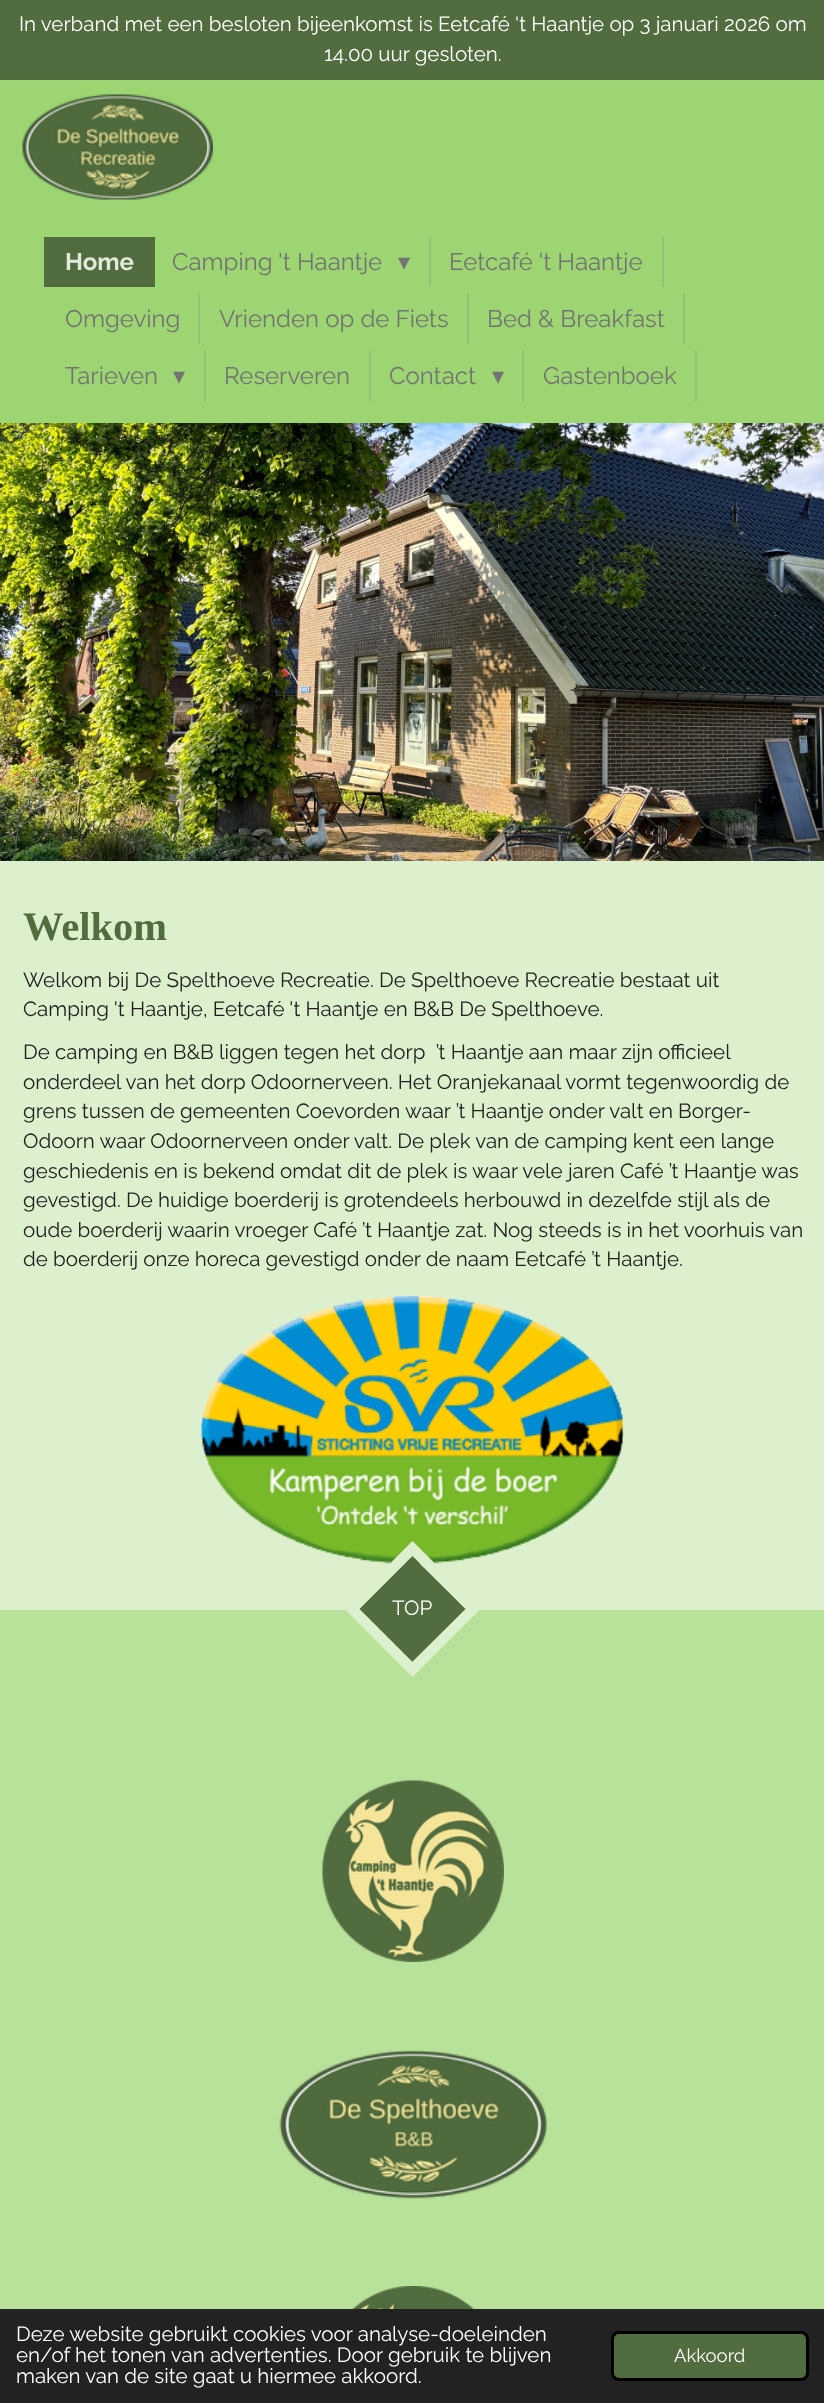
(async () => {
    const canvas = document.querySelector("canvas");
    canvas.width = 824;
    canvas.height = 2403;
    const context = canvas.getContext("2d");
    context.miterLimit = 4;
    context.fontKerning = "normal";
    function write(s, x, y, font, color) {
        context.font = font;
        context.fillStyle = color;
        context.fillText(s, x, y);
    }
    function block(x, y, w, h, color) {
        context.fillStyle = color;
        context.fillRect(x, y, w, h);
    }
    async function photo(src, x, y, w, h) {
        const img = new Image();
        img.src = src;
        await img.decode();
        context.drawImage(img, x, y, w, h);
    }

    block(0, 0, 824, 2403, "rgb(221, 240, 206)");
    block(0, 0, 824, 80, "rgb(81, 108, 63)");
    write("In verband met een besloten bijeenkomst is Eetcafé ‘t Haantje op 3 januari 2026 om", 19, 31, "20.55px Raleway", "rgb(255, 255, 255)");
    write("14.00 uur gesloten.", 324, 61, "20.55px Raleway", "rgb(255, 255, 255)");
    block(0, 80, 824, 343, "rgb(157, 213, 115)");
    await photo("media/1.png", 22, 94, 191, 106);
    block(44, 237, 111, 50, "rgb(81, 108, 63)");
    write("Home", 65, 270, "bold 24px Raleway", "rgb(224, 233, 218)");
    write("Camping 't Haantje", 172, 270, "24px Raleway", "rgb(115, 115, 115)");
    write("▾", 398, 270, "24px DejaVu Sans", "rgb(115, 115, 115)");
    block(429, 237, 2, 50, "rgb(149, 193, 115)");
    write("Eetcafé 't Haantje", 449, 270, "24px Raleway", "rgb(115, 115, 115)");
    block(662, 237, 2, 50, "rgb(149, 193, 115)");
    write("Omgeving", 65, 327, "24px Raleway", "rgb(115, 115, 115)");
    block(198, 294, 2, 50, "rgb(149, 193, 115)");
    write("Vrienden op de Fiets", 219, 327, "24px Raleway", "rgb(115, 115, 115)");
    block(467, 294, 2, 50, "rgb(149, 193, 115)");
    write("Bed & Breakfast", 487, 327, "24px Raleway", "rgb(115, 115, 115)");
    block(683, 294, 2, 50, "rgb(149, 193, 115)");
    write("Tarieven", 65, 384, "24px Raleway", "rgb(115, 115, 115)");
    write("▾", 173, 384, "24px DejaVu Sans", "rgb(115, 115, 115)");
    block(204, 351, 2, 50, "rgb(149, 193, 115)");
    write("Reserveren", 224, 384, "24px Raleway", "rgb(115, 115, 115)");
    block(369, 351, 2, 50, "rgb(149, 193, 115)");
    write("Contact", 389, 384, "24px Raleway", "rgb(115, 115, 115)");
    write("▾", 492, 384, "24px DejaVu Sans", "rgb(115, 115, 115)");
    block(522, 351, 2, 50, "rgb(149, 193, 115)");
    write("Gastenboek", 543, 384, "24px Raleway", "rgb(115, 115, 115)");
    block(695, 351, 2, 50, "rgb(149, 193, 115)");
    await photo("media/2.png", 0, 423, 824, 438);
    write("Welkom", 23, 940, "bold 40.5px Liberation Serif", "rgb(81, 108, 63)");
    write("Welkom bij De Spelthoeve Recreatie. De Spelthoeve Recreatie bestaat uit", 23, 987, "20.55px Raleway", "rgb(32, 32, 32)");
    write("Camping 't Haantje, Eetcafé 't Haantje en B&B De Spelthoeve.", 23, 1016, "20.55px Raleway", "rgb(32, 32, 32)");
    write("De camping en B&B liggen tegen het dorp  ’t Haantje aan maar zijn officieel", 23, 1059, "20.55px Raleway", "rgb(32, 32, 32)");
    write("onderdeel van het dorp Odoornerveen. Het Oranjekanaal vormt tegenwoordig de", 23, 1089, "20.55px Raleway", "rgb(32, 32, 32)");
    write("grens tussen de gemeenten Coevorden waar ’t Haantje onder valt en Borger-", 23, 1118, "20.55px Raleway", "rgb(32, 32, 32)");
    write("Odoorn waar Odoornerveen onder valt. De plek van de camping kent een lange", 23, 1148, "20.55px Raleway", "rgb(32, 32, 32)");
    write("geschiedenis en is bekend omdat dit de plek is waar vele jaren Café ’t Haantje was", 23, 1178, "20.55px Raleway", "rgb(32, 32, 32)");
    write("gevestigd. De huidige boerderij is grotendeels herbouwd in dezelfde stijl als de", 23, 1207, "20.55px Raleway", "rgb(32, 32, 32)");
    write("oude boerderij waarin vroeger Café ’t Haantje zat. Nog steeds is in het voorhuis van", 23, 1237, "20.55px Raleway", "rgb(32, 32, 32)");
    write("de boerderij onze horeca gevestigd onder de naam Eetcafé ’t Haantje.", 23, 1266, "20.55px Raleway", "rgb(32, 32, 32)");
    await photo("media/3.png", 201, 1296, 423, 269);
    block(0, 1610, 824, 699, "rgb(184, 225, 154)");
    context.fillStyle = "rgb(81, 108, 63)";
    context.beginPath();
    context.moveTo(412, 1556);
    context.lineTo(466, 1609);
    context.lineTo(412, 1662);
    context.lineTo(359, 1609);
    context.closePath();
    context.fill();
    context.beginPath();
    context.moveTo(412.5, 1548.5);
    context.lineTo(473, 1609);
    context.lineTo(412.5, 1669.5);
    context.lineTo(352, 1609);
    context.closePath();
    context.strokeStyle = "rgb(221, 240, 206)";
    context.lineWidth = 10.5;
    context.stroke();
    write("TOP", 392, 1615, "20.55px Raleway", "rgb(255, 255, 255)");
    await photo("media/4.png", 322, 1780, 182, 182);
    await photo("media/5.png", 279, 2050, 268, 149);
    await photo("media/6.png", 352, 2286, 123, 23);
    block(0, 2309, 824, 94, "rgb(34, 34, 34)");
    write("Deze website gebruikt cookies voor analyse-doeleinden", 16, 2341, "20.55px Raleway", "rgb(255, 255, 255)");
    write("en/of het tonen van advertenties. Door gebruik te blijven", 16, 2362, "20.55px Raleway", "rgb(255, 255, 255)");
    write("maken van de site gaat u hiermee akkoord.", 16, 2383, "20.55px Raleway", "rgb(255, 255, 255)");
    context.fillStyle = "rgb(81, 108, 63)";
    context.beginPath();
    context.roundRect(612.5, 2332.5, 195, 47, 6.5);
    context.fill();
    context.strokeStyle = "rgb(0, 0, 0)";
    context.lineWidth = 3;
    context.stroke();
    write("Akkoord", 674, 2362, "18.5px Raleway", "rgb(255, 255, 255)");
})();
